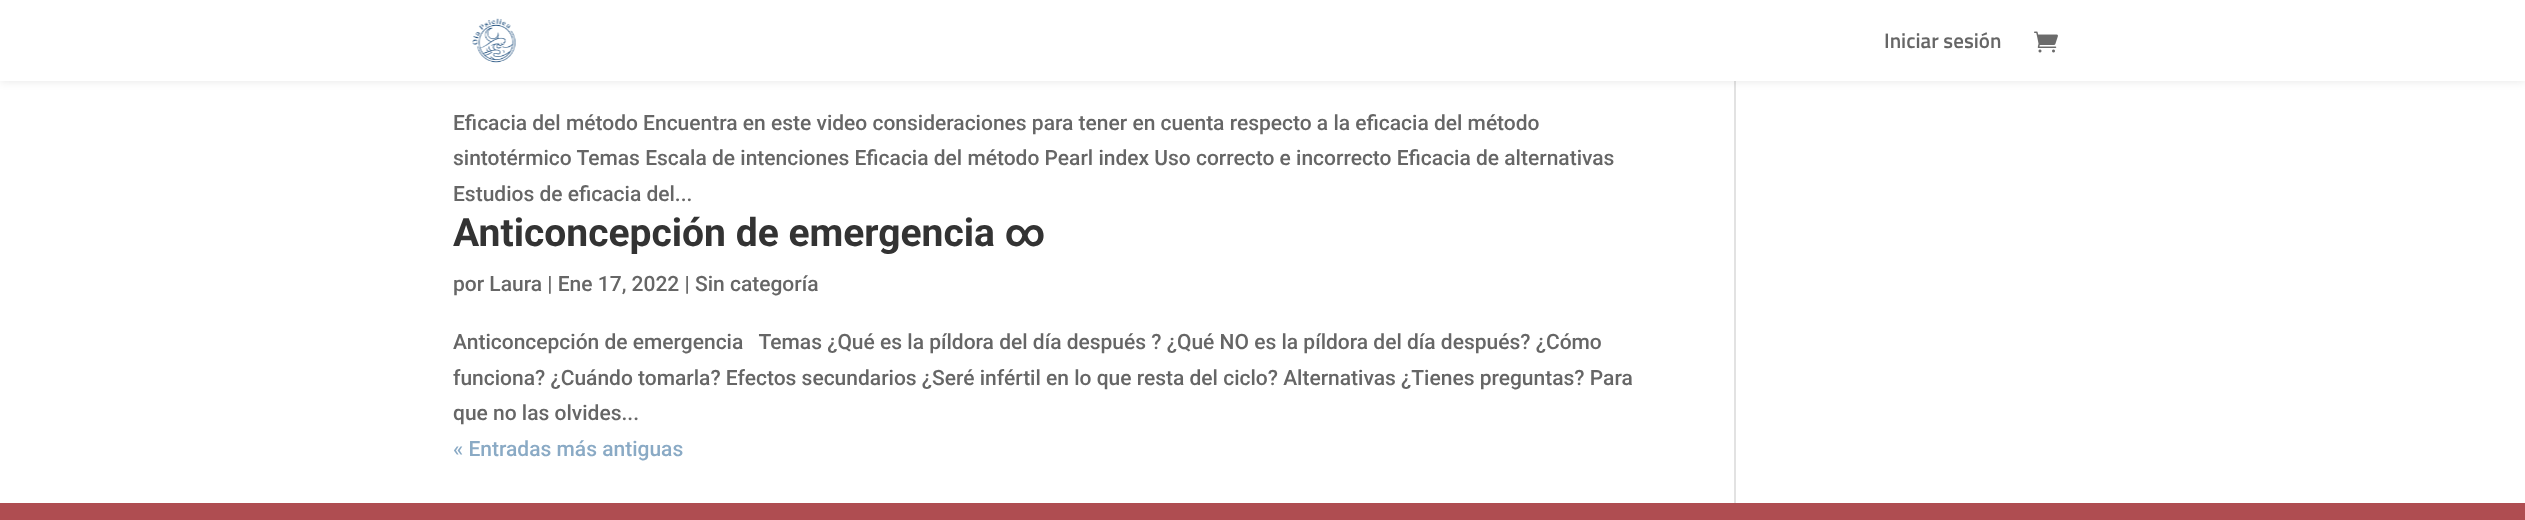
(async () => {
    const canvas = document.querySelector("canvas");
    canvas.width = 2525;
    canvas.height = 520;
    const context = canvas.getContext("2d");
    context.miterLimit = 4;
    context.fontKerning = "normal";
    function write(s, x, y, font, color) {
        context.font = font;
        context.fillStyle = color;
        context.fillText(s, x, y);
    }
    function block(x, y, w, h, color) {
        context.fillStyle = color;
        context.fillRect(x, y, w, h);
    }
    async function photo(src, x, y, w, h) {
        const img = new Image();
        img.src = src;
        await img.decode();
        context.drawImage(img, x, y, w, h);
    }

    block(0, 0, 2525, 520, "rgb(255, 255, 255)");
    block(1734, 81, 2, 422, "rgb(226, 226, 226)");
    context.fillStyle = "rgba(0, 0, 0, 0.1)";
    context.filter = "blur(5px)";
    context.beginPath();
    context.rect(0, 0, 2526, 81);
    context.fill();
    context.filter = "none";
    block(0, 0, 2525, 81, "rgb(255, 255, 255)");
    await photo("media/1.png", 472, 18, 44, 45);
    write("Iniciar sesión", 1884, 48, "600 21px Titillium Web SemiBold", "rgb(102, 102, 102)");
    await photo("media/2.png", 2034, 31, 24, 22);
    write("Eficacia del método Encuentra en este video consideraciones para tener en cuenta respecto a la eficacia del método", 453, 130, "500 21px Roboto", "rgb(102, 102, 102)");
    write("sintotérmico Temas Escala de intenciones Eficacia del método Pearl index Uso correcto e incorrecto Eficacia de alternativas", 453, 165, "500 21px Roboto", "rgb(102, 102, 102)");
    write("Estudios de eficacia del...", 453, 201, "500 21px Roboto", "rgb(102, 102, 102)");
    write("Anticoncepción de emergencia ∞", 453, 246, "bold 39px Roboto", "rgb(51, 51, 51)");
    write("por Laura | Ene 17, 2022 | Sin categoría", 453, 291, "500 21px Roboto", "rgb(102, 102, 102)");
    write("Anticoncepción de emergencia   Temas ¿Qué es la píldora del día después ? ¿Qué NO es la píldora del día después? ¿Cómo", 453, 349, "500 21px Roboto", "rgb(102, 102, 102)");
    write("funciona? ¿Cuándo tomarla? Efectos secundarios ¿Seré infértil en lo que resta del ciclo? Alternativas ¿Tienes preguntas? Para", 453, 385, "500 21px Roboto", "rgb(102, 102, 102)");
    write("que no las olvides...", 453, 420, "500 21px Roboto", "rgb(102, 102, 102)");
    write("« Entradas más antiguas", 453, 456, "500 21px Roboto", "rgb(138, 170, 197)");
    block(0, 503, 2525, 17, "rgb(175, 77, 81)");
})();
